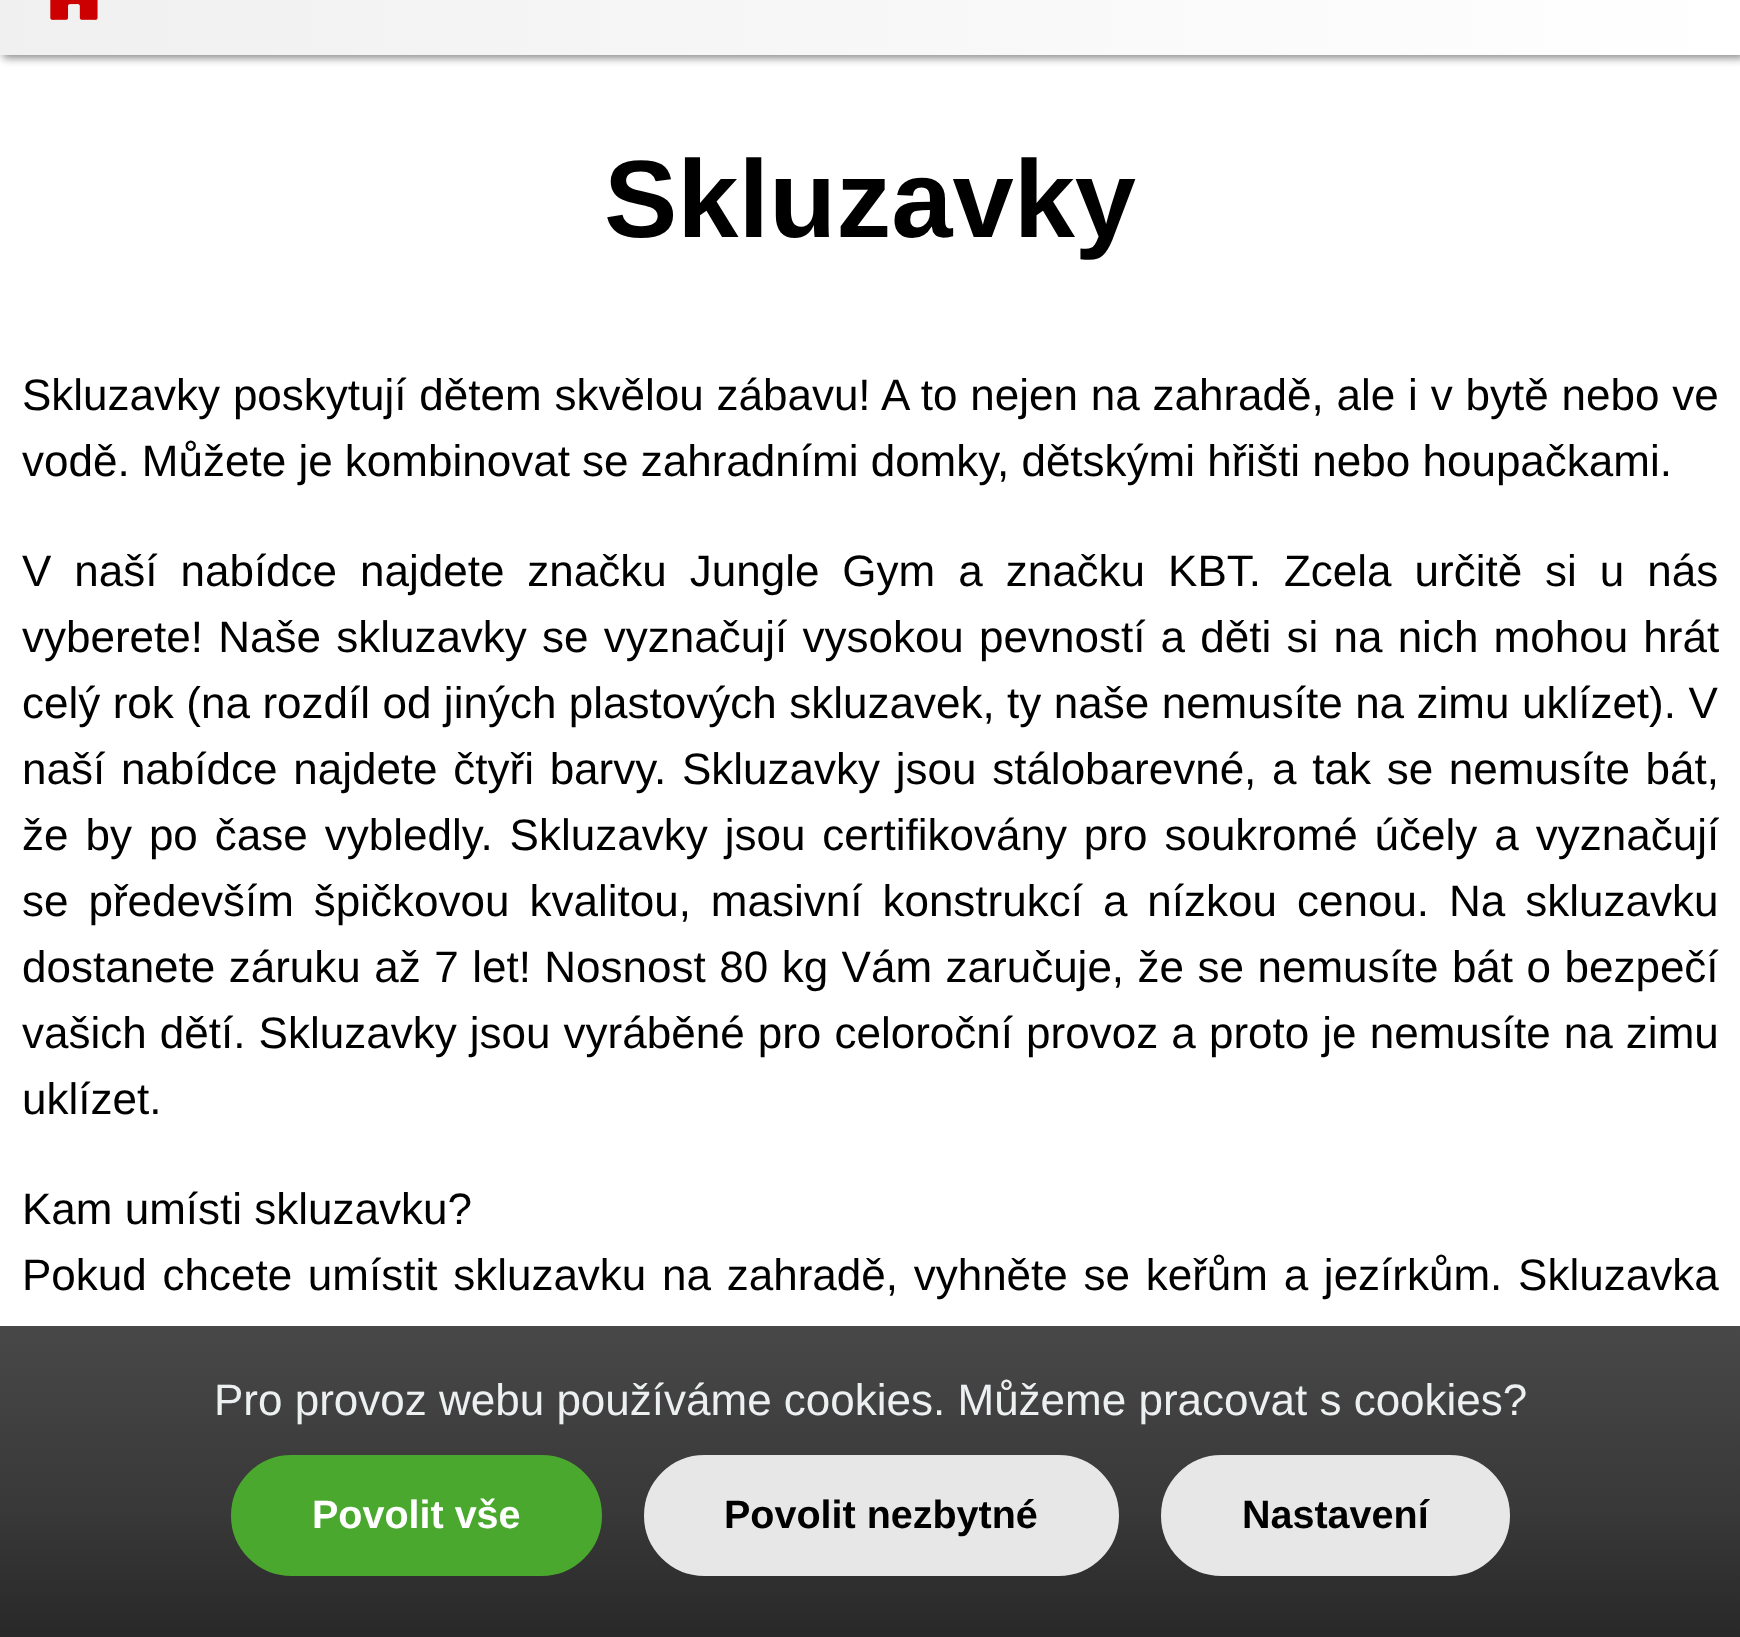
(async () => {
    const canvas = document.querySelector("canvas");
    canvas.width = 1740;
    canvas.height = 1637;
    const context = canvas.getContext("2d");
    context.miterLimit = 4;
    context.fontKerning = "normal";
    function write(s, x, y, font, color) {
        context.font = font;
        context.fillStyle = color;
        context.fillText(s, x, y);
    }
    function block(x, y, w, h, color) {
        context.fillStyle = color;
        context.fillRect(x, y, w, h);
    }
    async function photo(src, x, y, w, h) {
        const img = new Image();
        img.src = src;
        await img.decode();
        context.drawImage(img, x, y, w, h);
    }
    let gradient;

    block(0, 0, 1740, 1637, "rgb(255, 255, 255)");
    context.fillStyle = "rgb(136, 136, 136)";
    context.filter = "blur(4px)";
    context.beginPath();
    context.rect(3, -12, 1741, 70);
    context.fill();
    context.filter = "none";
    gradient = context.createLinearGradient(0, -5.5, 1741, -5.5);
    gradient.addColorStop(0, "rgb(240, 240, 240)");
    gradient.addColorStop(1, "rgb(255, 255, 255)");
    context.fillStyle = gradient;
    context.fillRect(0, 0, 1740, 55);
    await photo("media/1.png", 50, 0, 48, 20);
    write("Skluzavky", 604, 237, "bold 110px Liberation Sans", "rgb(0, 0, 0)");
    context.wordSpacing = "0.6px";
    write("Skluzavky poskytují dětem skvělou zábavu! A to nejen na zahradě, ale i v bytě nebo ve", 22, 410, "44px Liberation Sans", "rgb(0, 0, 0)");
    context.wordSpacing = "0px";
    write("vodě. Můžete je kombinovat se zahradními domky, dětskými hřišti nebo houpačkami.", 22, 476, "44px Liberation Sans", "rgb(0, 0, 0)");
    context.wordSpacing = "10.75px";
    write("V naší nabídce najdete značku Jungle Gym a značku KBT. Zcela určitě si u nás", 22, 586, "44px Liberation Sans", "rgb(0, 0, 0)");
    context.wordSpacing = "3px";
    write("vyberete! Naše skluzavky se vyznačují vysokou pevností a děti si na nich mohou hrát", 22, 652, "44px Liberation Sans", "rgb(0, 0, 0)");
    context.wordSpacing = "0.25px";
    write("celý rok (na rozdíl od jiných plastových skluzavek, ty naše nemusíte na zimu uklízet). V", 22, 718, "44px Liberation Sans", "rgb(0, 0, 0)");
    context.wordSpacing = "3.5px";
    write("naší nabídce najdete čtyři barvy. Skluzavky jsou stálobarevné, a tak se nemusíte bát,", 22, 784, "44px Liberation Sans", "rgb(0, 0, 0)");
    context.wordSpacing = "4.75px";
    write("že by po čase vybledly. Skluzavky jsou certifikovány pro soukromé účely a vyznačují", 22, 850, "44px Liberation Sans", "rgb(0, 0, 0)");
    context.wordSpacing = "7.75px";
    write("se především špičkovou kvalitou, masivní konstrukcí a nízkou cenou. Na skluzavku", 22, 916, "44px Liberation Sans", "rgb(0, 0, 0)");
    context.wordSpacing = "1.25px";
    write("dostanete záruku až 7 let! Nosnost 80 kg Vám zaručuje, že se nemusíte bát o bezpečí", 22, 982, "44px Liberation Sans", "rgb(0, 0, 0)");
    context.wordSpacing = "0.9px";
    write("vašich dětí. Skluzavky jsou vyráběné pro celoroční provoz a proto je nemusíte na zimu", 22, 1048, "44px Liberation Sans", "rgb(0, 0, 0)");
    context.wordSpacing = "0px";
    write("uklízet.", 22, 1114, "44px Liberation Sans", "rgb(0, 0, 0)");
    write("Kam umísti skluzavku?", 22, 1224, "44px Liberation Sans", "rgb(0, 0, 0)");
    context.wordSpacing = "3.5px";
    write("Pokud chcete umístit skluzavku na zahradě, vyhněte se keřům a jezírkům. Skluzavka", 22, 1290, "44px Liberation Sans", "rgb(0, 0, 0)");
    gradient = context.createLinearGradient(870, 1325, 870, 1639);
    gradient.addColorStop(0, "rgb(72, 72, 72)");
    gradient.addColorStop(0.6, "rgb(56, 56, 56)");
    gradient.addColorStop(1, "rgb(40, 40, 40)");
    context.fillStyle = gradient;
    context.fillRect(0, 1326, 1740, 311);
    context.wordSpacing = "0px";
    write("Pro provoz webu používáme cookies. Můžeme pracovat s cookies?", 214, 1415, "44px Liberation Sans", "rgb(236, 240, 241)");
    context.fillStyle = "rgb(75, 168, 46)";
    context.beginPath();
    context.roundRect(232.5, 1456.5, 368, 118, 59);
    context.fill();
    context.strokeStyle = "rgb(75, 168, 46)";
    context.lineWidth = 3;
    context.stroke();
    write("Povolit vše", 312, 1528, "bold 39.5px Liberation Sans", "rgb(255, 255, 255)");
    context.fillStyle = "rgb(231, 231, 231)";
    context.beginPath();
    context.roundRect(645.5, 1456.5, 472, 118, 59);
    context.fill();
    context.strokeStyle = "rgb(231, 231, 231)";
    context.stroke();
    write("Povolit nezbytné", 724, 1528, "bold 39.5px Liberation Sans", "rgb(0, 0, 0)");
    context.fillStyle = "rgb(231, 231, 231)";
    context.beginPath();
    context.roundRect(1162.5, 1456.5, 346, 118, 59);
    context.fill();
    context.stroke();
    write("Nastavení", 1242, 1528, "bold 39.5px Liberation Sans", "rgb(0, 0, 0)");
})();
